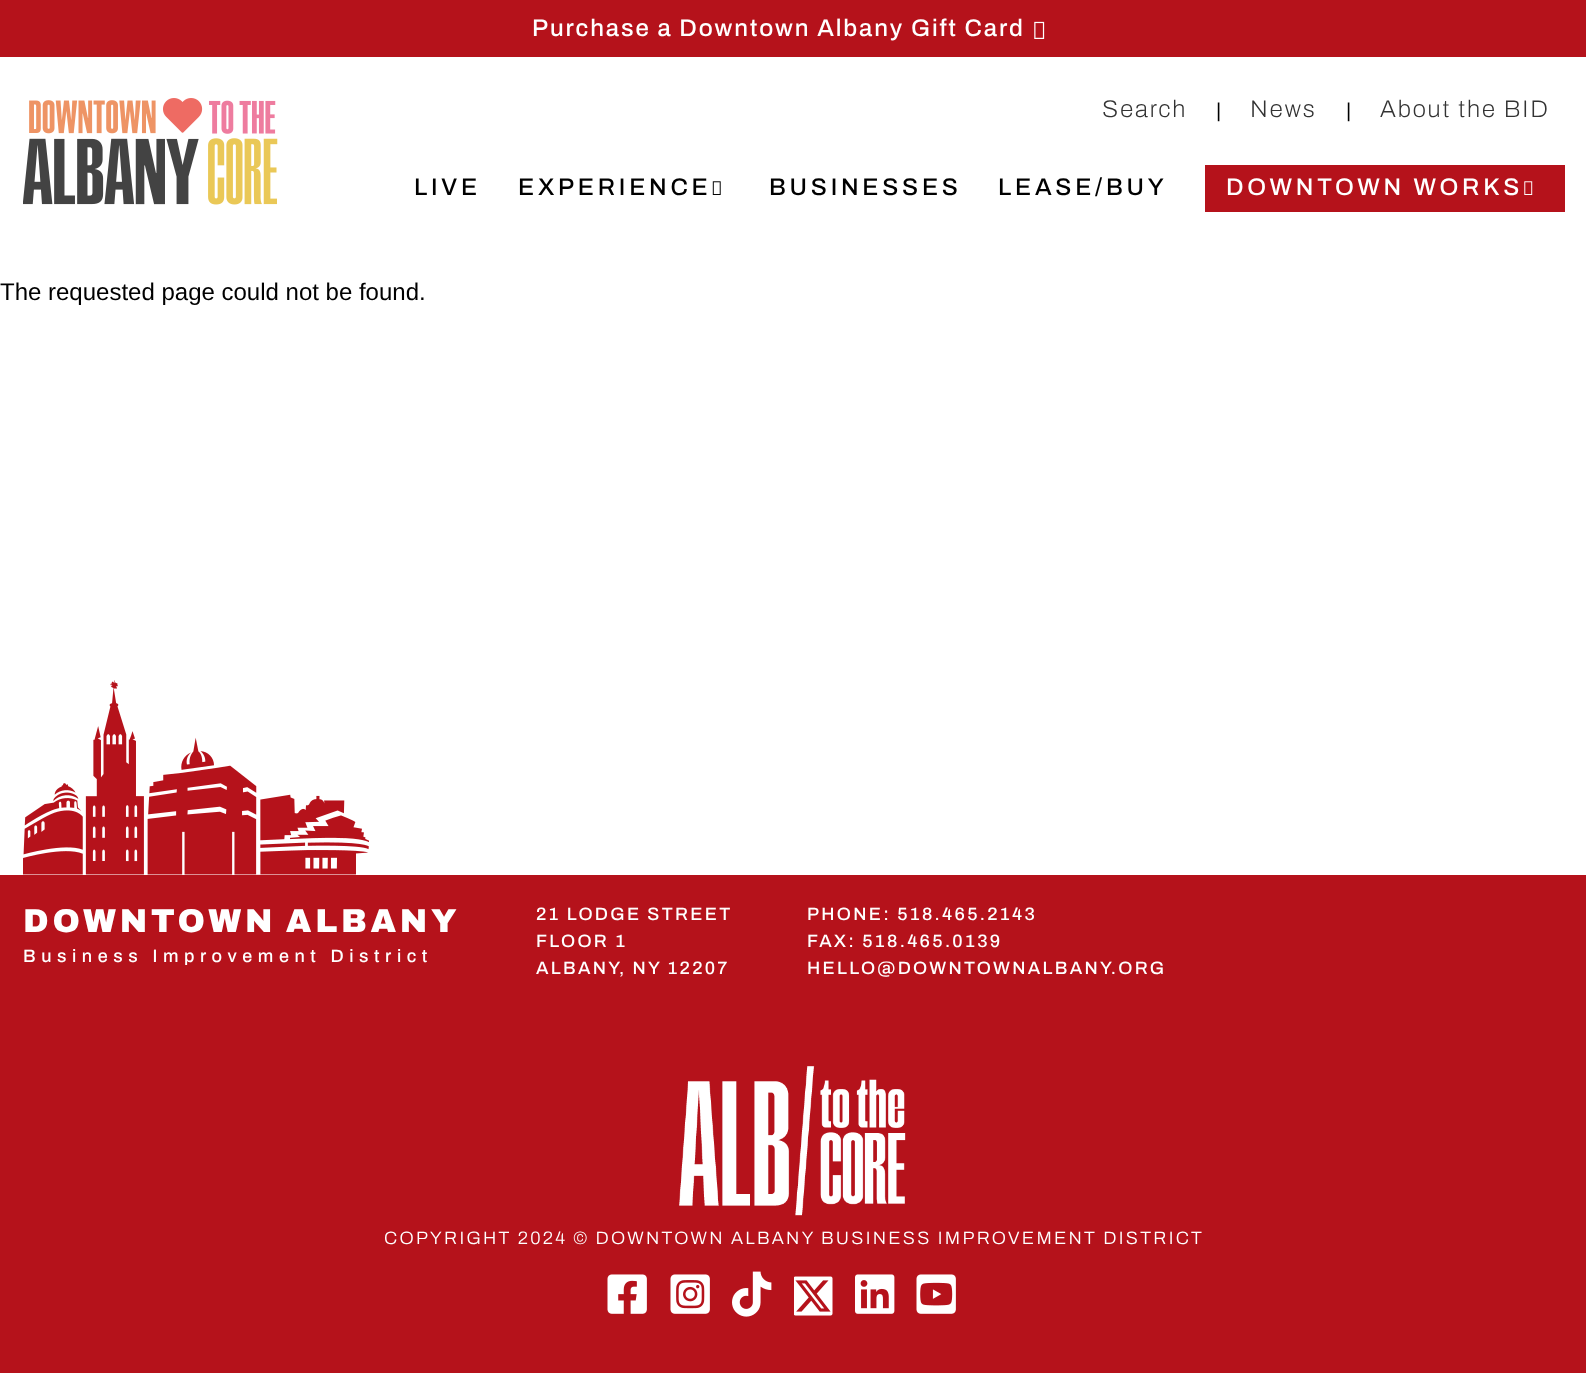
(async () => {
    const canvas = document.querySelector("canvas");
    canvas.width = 1586;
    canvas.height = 1373;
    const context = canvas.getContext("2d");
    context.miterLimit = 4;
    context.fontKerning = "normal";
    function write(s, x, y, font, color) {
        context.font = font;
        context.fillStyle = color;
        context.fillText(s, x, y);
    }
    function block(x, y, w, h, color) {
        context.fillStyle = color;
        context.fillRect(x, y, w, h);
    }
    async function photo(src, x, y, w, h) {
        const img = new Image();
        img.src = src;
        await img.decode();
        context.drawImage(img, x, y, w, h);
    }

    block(0, 0, 1586, 1373, "rgb(255, 255, 255)");
    block(0, 0, 1586, 57, "rgb(181, 18, 27)");
    context.letterSpacing = "1.9px";
    write("Purchase a Downtown Albany Gift Card", 532, 36, "500 24px Archivo", "rgb(255, 255, 255)");
    await photo("media/1.png", 1034, 21, 11, 18);
    await photo("media/2.png", 23, 98, 255, 107);
    write("Search", 1102, 117, "200 24px Archivo", "rgb(51, 51, 51)");
    context.letterSpacing = "0px";
    write("|", 1216, 117, "20px Liberation Sans", "rgb(0, 0, 0)");
    context.letterSpacing = "1.9px";
    write("News", 1250, 117, "200 24px Archivo", "rgb(51, 51, 51)");
    context.letterSpacing = "0px";
    write("|", 1346, 117, "20px Liberation Sans", "rgb(0, 0, 0)");
    context.letterSpacing = "1.9px";
    write("About the BID", 1380, 117, "200 24px Archivo", "rgb(51, 51, 51)");
    context.letterSpacing = "3.75px";
    write("LIVE", 414, 195, "500 24px Archivo", "rgb(0, 0, 0)");
    write("EXPERIENCE", 518, 195, "500 24px Archivo", "rgb(0, 0, 0)");
    await photo("media/3.png", 712, 181, 9, 14);
    write("BUSINESSES", 769, 195, "500 24px Archivo", "rgb(0, 0, 0)");
    write("LEASE/BUY", 998, 195, "500 24px Archivo", "rgb(0, 0, 0)");
    block(1205, 165, 360, 47, "rgb(181, 18, 27)");
    write("DOWNTOWN WORKS", 1226, 195, "500 24px Archivo", "rgb(255, 255, 255)");
    await photo("media/4.png", 1524, 181, 9, 14);
    context.letterSpacing = "0px";
    write("The requested page could not be found.", 0, 300, "24px Liberation Sans", "rgb(0, 0, 0)");
    block(0, 875, 1586, 498, "rgb(181, 18, 27)");
    await photo("media/5.png", 23, 680, 346, 195);
    context.letterSpacing = "3.75px";
    write("DOWNTOWN ALBANY", 23, 932, "900 33px Archivo", "rgb(255, 255, 255)");
    context.letterSpacing = "5.55px";
    write("Business Improvement District", 23, 962, "500 18px Archivo", "rgb(255, 255, 255)");
    context.letterSpacing = "2.3px";
    write("21 LODGE STREET", 536, 920, "500 18px Archivo", "rgb(255, 255, 255)");
    write("FLOOR 1", 536, 947, "500 18px Archivo", "rgb(255, 255, 255)");
    write("ALBANY, NY 12207", 536, 974, "500 18px Archivo", "rgb(255, 255, 255)");
    write("PHONE: 518.465.2143", 807, 920, "500 18px Archivo", "rgb(255, 255, 255)");
    write("FAX: 518.465.0139", 807, 947, "500 18px Archivo", "rgb(255, 255, 255)");
    write("HELLO@DOWNTOWNALBANY.ORG", 807, 974, "500 18px Archivo", "rgb(255, 255, 255)");
    await photo("media/6.png", 679, 1066, 227, 150);
    write("COPYRIGHT 2024 © DOWNTOWN ALBANY BUSINESS IMPROVEMENT DISTRICT", 384, 1244, "300 18px Archivo", "rgb(255, 255, 255)");
    await photo("media/7.png", 607, 1274, 40, 40);
    await photo("media/8.png", 670, 1274, 40, 40);
    await photo("media/9.png", 732, 1271, 40, 46);
    await photo("media/10.png", 794, 1276, 39, 40);
    await photo("media/11.png", 855, 1274, 40, 40);
    await photo("media/12.png", 916, 1274, 40, 40);
})();
